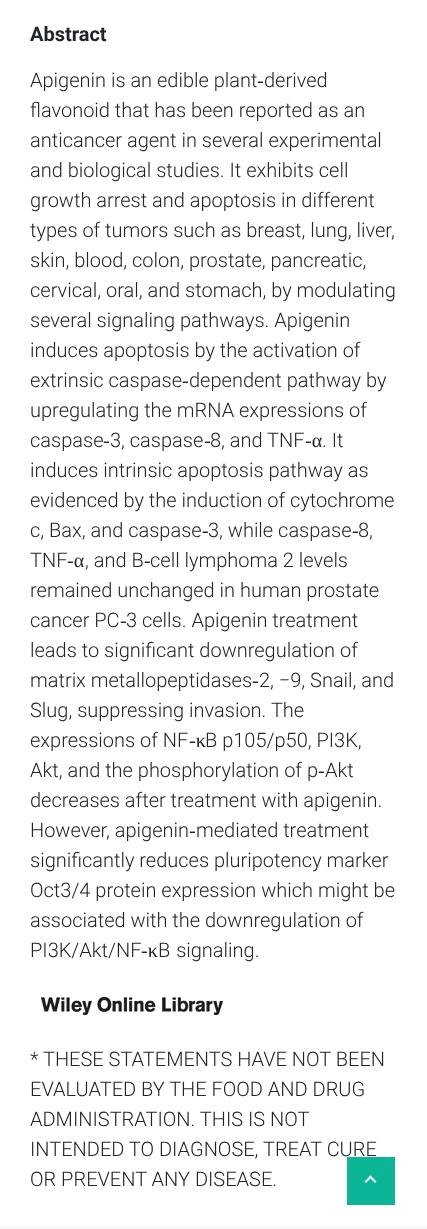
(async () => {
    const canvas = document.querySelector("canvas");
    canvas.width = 427;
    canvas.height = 1229;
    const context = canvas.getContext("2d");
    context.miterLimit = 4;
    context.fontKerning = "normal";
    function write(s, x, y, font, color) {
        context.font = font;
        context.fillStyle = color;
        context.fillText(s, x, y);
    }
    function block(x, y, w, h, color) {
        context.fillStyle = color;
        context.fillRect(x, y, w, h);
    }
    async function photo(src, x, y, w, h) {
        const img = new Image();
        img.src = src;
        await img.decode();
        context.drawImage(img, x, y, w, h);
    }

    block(0, 0, 427, 1229, "rgb(249, 249, 249)");
    block(0, 0, 427, 1226, "rgb(255, 255, 255)");
    write("Abstract", 30, 41, "bold 20px Roboto", "rgb(33, 37, 41)");
    write("Apigenin is an edible plant", 30, 87, "300 20px Roboto", "rgb(33, 37, 41)");
    write("‐", 257, 87, "20px Liberation Serif", "rgb(33, 37, 41)");
    write("derived", 264, 87, "300 20px Roboto", "rgb(33, 37, 41)");
    write("flavonoid that has been reported as an", 30, 117, "300 20px Roboto", "rgb(33, 37, 41)");
    write("anticancer agent in several experimental", 30, 147, "300 20px Roboto", "rgb(33, 37, 41)");
    write("and biological studies. It exhibits cell", 30, 177, "300 20px Roboto", "rgb(33, 37, 41)");
    write("growth arrest and apoptosis in different", 30, 207, "300 20px Roboto", "rgb(33, 37, 41)");
    write("types of tumors such as breast, lung, liver,", 30, 237, "300 20px Roboto", "rgb(33, 37, 41)");
    write("skin, blood, colon, prostate, pancreatic,", 30, 267, "300 20px Roboto", "rgb(33, 37, 41)");
    write("cervical, oral, and stomach, by modulating", 30, 297, "300 20px Roboto", "rgb(33, 37, 41)");
    write("several signaling pathways. Apigenin", 30, 327, "300 20px Roboto", "rgb(33, 37, 41)");
    write("induces apoptosis by the activation of", 30, 357, "300 20px Roboto", "rgb(33, 37, 41)");
    write("extrinsic caspase", 30, 387, "300 20px Roboto", "rgb(33, 37, 41)");
    write("‐", 182, 387, "20px Liberation Serif", "rgb(33, 37, 41)");
    write("dependent pathway by", 189, 387, "300 20px Roboto", "rgb(33, 37, 41)");
    write("upregulating the mRNA expressions of", 30, 417, "300 20px Roboto", "rgb(33, 37, 41)");
    write("caspase", 30, 447, "300 20px Roboto", "rgb(33, 37, 41)");
    write("‐", 103, 447, "20px Liberation Serif", "rgb(33, 37, 41)");
    write("3, caspase", 110, 447, "300 20px Roboto", "rgb(33, 37, 41)");
    write("‐", 204, 447, "20px Liberation Serif", "rgb(33, 37, 41)");
    write("8, and TNF", 210, 447, "300 20px Roboto", "rgb(33, 37, 41)");
    write("‐α", 305, 447, "20px Liberation Serif", "rgb(33, 37, 41)");
    write(". It", 322, 447, "300 20px Roboto", "rgb(33, 37, 41)");
    write("induces intrinsic apoptosis pathway as", 30, 477, "300 20px Roboto", "rgb(33, 37, 41)");
    write("evidenced by the induction of cytochrome", 30, 507, "300 20px Roboto", "rgb(33, 37, 41)");
    write("c, Bax, and caspase", 30, 537, "300 20px Roboto", "rgb(33, 37, 41)");
    write("‐", 202, 537, "20px Liberation Serif", "rgb(33, 37, 41)");
    write("3, while caspase", 208, 537, "300 20px Roboto", "rgb(33, 37, 41)");
    write("‐", 352, 537, "20px Liberation Serif", "rgb(33, 37, 41)");
    write("8,", 358, 537, "300 20px Roboto", "rgb(33, 37, 41)");
    write("TNF", 30, 567, "300 20px Roboto", "rgb(33, 37, 41)");
    write("‐α", 67, 567, "20px Liberation Serif", "rgb(33, 37, 41)");
    write(", and B", 85, 567, "300 20px Roboto", "rgb(33, 37, 41)");
    write("‐", 144, 567, "20px Liberation Serif", "rgb(33, 37, 41)");
    write("cell lymphoma 2 levels", 150, 567, "300 20px Roboto", "rgb(33, 37, 41)");
    write("remained unchanged in human prostate", 30, 597, "300 20px Roboto", "rgb(33, 37, 41)");
    write("cancer PC", 30, 627, "300 20px Roboto", "rgb(33, 37, 41)");
    write("‐", 120, 627, "20px Liberation Serif", "rgb(33, 37, 41)");
    write("3 cells. Apigenin treatment", 126, 627, "300 20px Roboto", "rgb(33, 37, 41)");
    write("leads to significant downregulation of", 30, 657, "300 20px Roboto", "rgb(33, 37, 41)");
    write("matrix metallopeptidases", 30, 687, "300 20px Roboto", "rgb(33, 37, 41)");
    write("‐", 252, 687, "20px Liberation Serif", "rgb(33, 37, 41)");
    write("2, −9, Snail, and", 259, 687, "300 20px Roboto", "rgb(33, 37, 41)");
    write("Slug, suppressing invasion. The", 30, 717, "300 20px Roboto", "rgb(33, 37, 41)");
    write("expressions of NF", 30, 747, "300 20px Roboto", "rgb(33, 37, 41)");
    write("‐κ", 189, 747, "20px Liberation Serif", "rgb(33, 37, 41)");
    write("B p105/p50, PI3K,", 205, 747, "300 20px Roboto", "rgb(33, 37, 41)");
    write("Akt, and the phosphorylation of p", 30, 777, "300 20px Roboto", "rgb(33, 37, 41)");
    write("‐", 318, 777, "20px Liberation Serif", "rgb(33, 37, 41)");
    write("Akt", 325, 777, "300 20px Roboto", "rgb(33, 37, 41)");
    write("decreases after treatment with apigenin.", 30, 807, "300 20px Roboto", "rgb(33, 37, 41)");
    write("However, apigenin", 30, 837, "300 20px Roboto", "rgb(33, 37, 41)");
    write("‐", 189, 837, "20px Liberation Serif", "rgb(33, 37, 41)");
    write("mediated treatment", 196, 837, "300 20px Roboto", "rgb(33, 37, 41)");
    write("significantly reduces pluripotency marker", 30, 867, "300 20px Roboto", "rgb(33, 37, 41)");
    write("Oct3/4 protein expression which might be", 30, 897, "300 20px Roboto", "rgb(33, 37, 41)");
    write("associated with the downregulation of", 30, 927, "300 20px Roboto", "rgb(33, 37, 41)");
    write("PI3K/Akt/NF", 30, 957, "300 20px Roboto", "rgb(33, 37, 41)");
    write("‐κ", 141, 957, "20px Liberation Serif", "rgb(33, 37, 41)");
    context.wordSpacing = "1px";
    write("B signaling.", 158, 957, "300 20px Roboto", "rgb(33, 37, 41)");
    await photo("media/1.png", 41, 997, 182, 18);
    context.wordSpacing = "0px";
    write("* THESE STATEMENTS HAVE NOT BEEN", 30, 1066, "300 20px Roboto", "rgb(33, 37, 41)");
    write("EVALUATED BY THE FOOD AND DRUG", 30, 1096, "300 20px Roboto", "rgb(33, 37, 41)");
    write("ADMINISTRATION. THIS IS NOT", 30, 1126, "300 20px Roboto", "rgb(33, 37, 41)");
    write("INTENDED TO DIAGNOSE, TREAT CURE", 30, 1156, "300 20px Roboto", "rgb(33, 37, 41)");
    write("OR PREVENT ANY DISEASE.", 30, 1186, "300 20px Roboto", "rgb(33, 37, 41)");
    block(347, 1157, 48, 48, "rgb(11, 182, 151)");
    context.fillStyle = "rgb(244, 244, 244)";
    context.beginPath();
    context.moveTo(364.5, 1181.5);
    context.lineTo(370.5, 1175.5);
    context.lineTo(372, 1177);
    context.lineTo(366, 1183);
    context.closePath();
    context.fill();
    context.beginPath();
    context.moveTo(369, 1177);
    context.lineTo(370.5, 1175.5);
    context.lineTo(376.5, 1181.5);
    context.lineTo(375, 1183);
    context.closePath();
    context.fill();
})();
